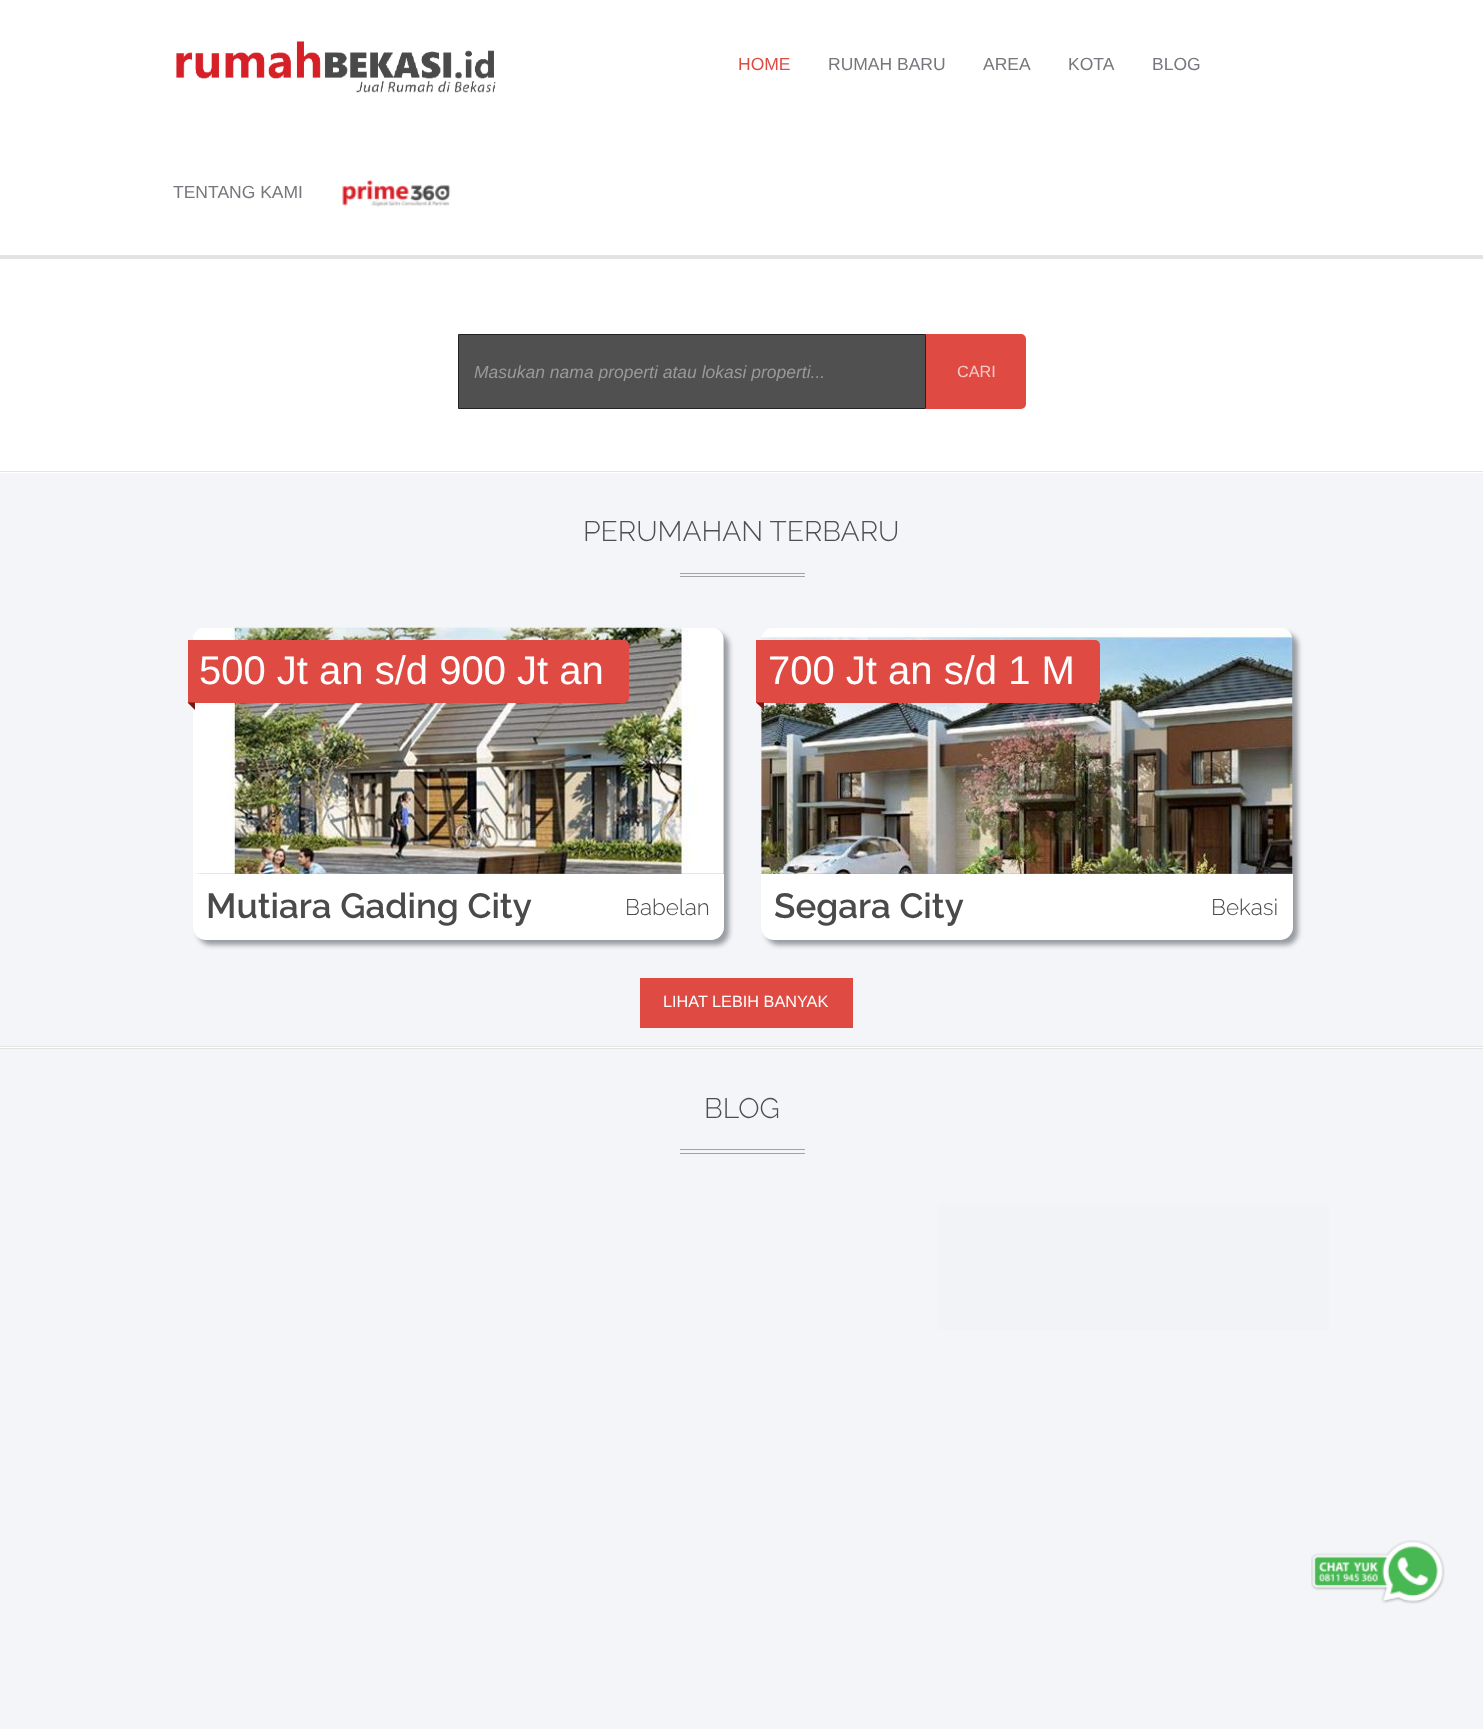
(async () => {
    const canvas = document.querySelector("canvas");
    canvas.width = 1483;
    canvas.height = 1729;
    const context = canvas.getContext("2d");
    context.miterLimit = 4;
    context.fontKerning = "normal";
    function write(s, x, y, font, color) {
        context.font = font;
        context.fillStyle = color;
        context.fillText(s, x, y);
    }
    function block(x, y, w, h, color) {
        context.fillStyle = color;
        context.fillRect(x, y, w, h);
    }
    async function photo(src, x, y, w, h) {
        const img = new Image();
        img.src = src;
        await img.decode();
        context.drawImage(img, x, y, w, h);
    }

    block(0, 0, 1483, 1729, "rgb(255, 255, 255)");
    await photo("media/1.png", 176, 41, 320, 52);
    write("HOME", 738, 70, "17.5px Liberation Sans", "rgb(223, 74, 67)");
    write("RUMAH BARU", 828, 70, "17.5px Liberation Sans", "rgb(116, 119, 124)");
    write("AREA", 983, 70, "17.5px Liberation Sans", "rgb(116, 119, 124)");
    write("KOTA", 1068, 70, "17.5px Liberation Sans", "rgb(116, 119, 124)");
    write("BLOG", 1152, 70, "17.5px Liberation Sans", "rgb(116, 119, 124)");
    write("TENTANG KAMI", 173, 198, "17.5px Liberation Sans", "rgb(116, 119, 124)");
    await photo("media/2.png", 342, 180, 109, 27);
    block(0, 255, 1483, 4, "rgb(227, 227, 227)");
    context.fillStyle = "rgb(80, 80, 81)";
    context.beginPath();
    context.rect(458.5, 334.5, 467, 74);
    context.fill();
    context.strokeStyle = "rgb(33, 34, 35)";
    context.stroke();
    context.save();
    context.beginPath();
    context.rect(474, 361, 436, 20);
    context.clip();
    write("Masukan nama properti atau lokasi properti...", 474, 378, "italic 17.5px Liberation Sans", "rgb(153, 153, 153)");
    context.restore();
    context.fillStyle = "rgb(223, 74, 67)";
    context.beginPath();
    context.roundRect(926, 334, 100, 75, [0, 5, 5, 0]);
    context.fill();
    write("CARI", 957, 377, "16.25px Liberation Sans", "rgb(245, 201, 199)");
    block(0, 471, 1483, 1, "rgb(227, 227, 227)");
    block(0, 1046, 1483, 1, "rgb(227, 227, 227)");
    block(0, 473, 1483, 573, "rgb(244, 245, 248)");
    write("PERUMAHAN TERBARU", 583, 541, "300 28.25px Raleway", "rgb(77, 79, 82)");
    block(680, 573, 125, 1, "rgb(161, 162, 165)");
    block(680, 576, 125, 1, "rgb(161, 162, 165)");
    context.fillStyle = "rgb(152, 156, 161)";
    context.filter = "blur(2.5px)";
    context.beginPath();
    context.roundRect(198, 633, 531, 312, 13);
    context.fill();
    context.filter = "none";
    await photo("media/3.png", 193, 627, 531, 247);
    context.fillStyle = "rgb(223, 74, 67)";
    context.beginPath();
    context.roundRect(188, 640, 441, 63, [0, 5, 5, 0]);
    context.fill();
    write("500 Jt an s/d 900 Jt an", 199, 684, "40px Liberation Sans", "rgb(255, 255, 255)");
    context.fillStyle = "rgb(117, 24, 20)";
    context.beginPath();
    context.moveTo(195, 702.5);
    context.lineTo(195, 710);
    context.lineTo(187.5, 702.5);
    context.closePath();
    context.fill();
    context.fillStyle = "rgb(255, 255, 255)";
    context.beginPath();
    context.roundRect(193, 874, 531, 66, [0, 0, 13, 13]);
    context.fill();
    write("Mutiara Gading City", 206, 918, "600 35px Raleway", "rgb(74, 74, 74)");
    write("Babelan", 625, 915, "300 22.5px Raleway", "rgb(74, 74, 74)");
    context.fillStyle = "rgb(152, 156, 161)";
    context.filter = "blur(2.5px)";
    context.beginPath();
    context.roundRect(766, 633, 532, 312, 13);
    context.fill();
    context.filter = "none";
    await photo("media/4.png", 761, 628, 532, 246);
    context.fillStyle = "rgb(223, 74, 67)";
    context.beginPath();
    context.roundRect(756, 640, 344, 63, [0, 5, 5, 0]);
    context.fill();
    write("700 Jt an s/d 1 M", 768, 684, "40px Liberation Sans", "rgb(255, 255, 255)");
    context.fillStyle = "rgb(117, 24, 20)";
    context.beginPath();
    context.moveTo(764, 702.5);
    context.lineTo(764, 710);
    context.lineTo(756, 702.5);
    context.closePath();
    context.fill();
    context.fillStyle = "rgb(255, 255, 255)";
    context.beginPath();
    context.roundRect(761, 874, 532, 66, [0, 0, 13, 13]);
    context.fill();
    write("Segara City", 774, 918, "600 35px Raleway", "rgb(74, 74, 74)");
    write("Bekasi", 1211, 915, "300 22.5px Raleway", "rgb(74, 74, 74)");
    block(640, 978, 213, 50, "rgb(223, 74, 67)");
    write("LIHAT LEBIH BANYAK", 663, 1007, "16.25px Liberation Sans", "rgb(255, 255, 255)");
    block(0, 1048, 1483, 1, "rgb(227, 227, 227)");
    block(0, 1049, 1483, 680, "rgb(244, 245, 248)");
    write("BLOG", 704, 1118, "300 28.25px Raleway", "rgb(77, 79, 82)");
    block(680, 1149, 125, 1, "rgb(161, 162, 165)");
    block(680, 1153, 125, 1, "rgb(161, 162, 165)");
    block(938, 1204, 391, 126, "rgb(241, 243, 246)");
    await photo("media/5.png", 1311, 1540, 134, 64);
})();
